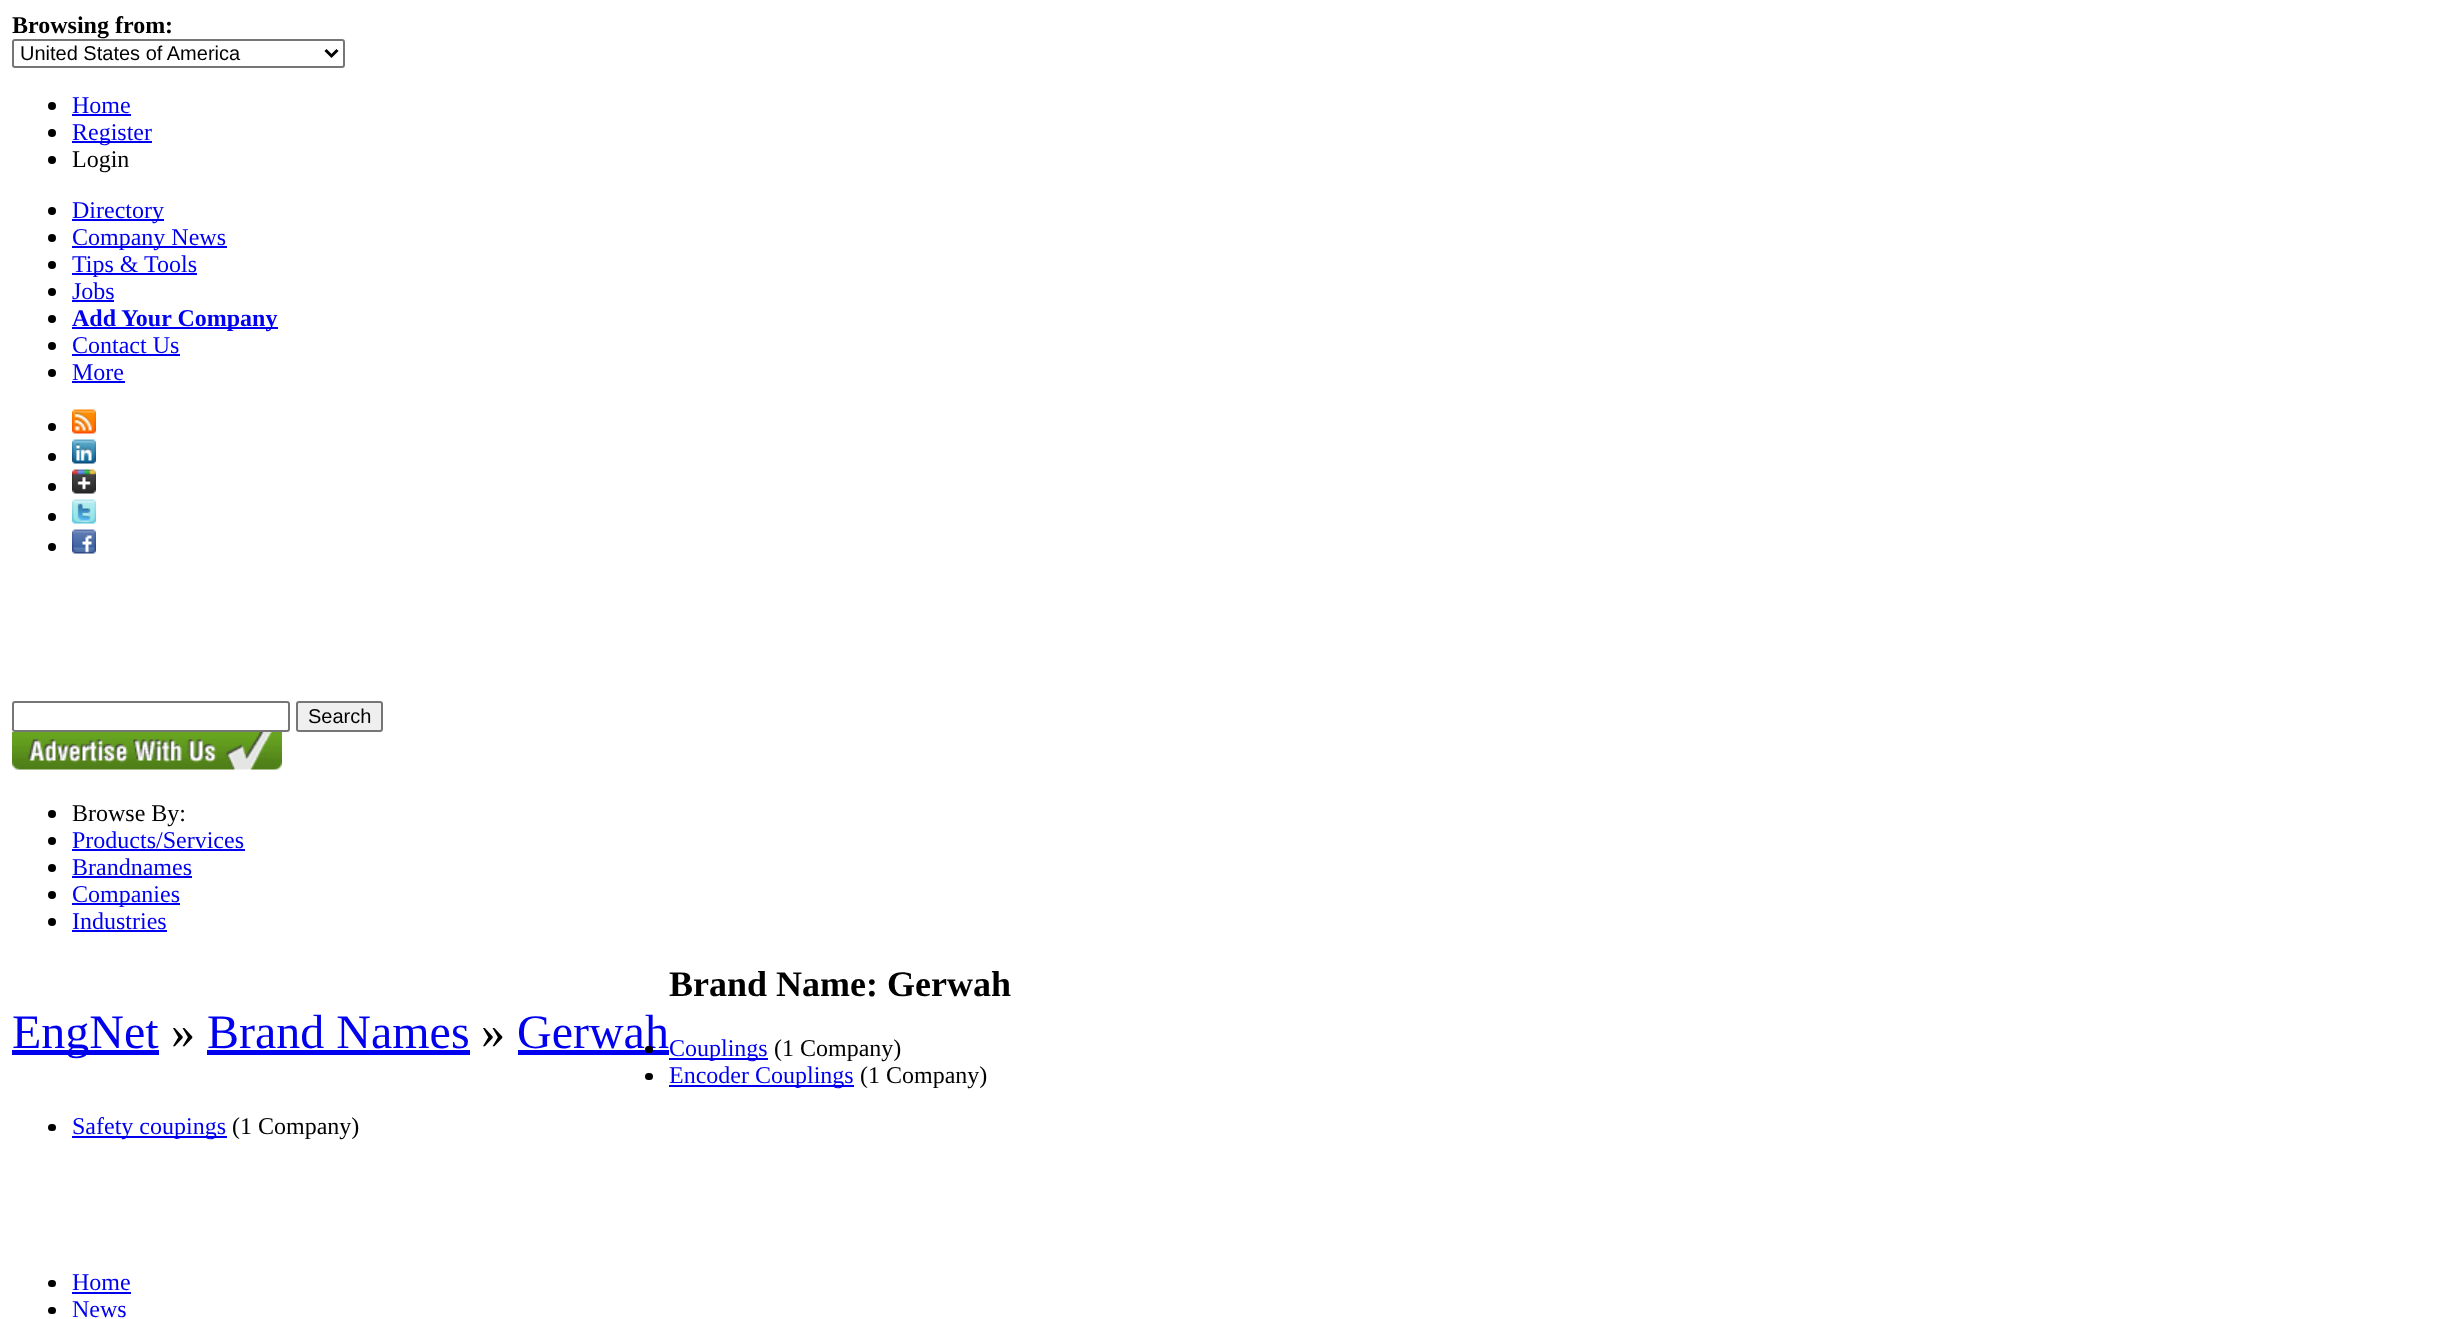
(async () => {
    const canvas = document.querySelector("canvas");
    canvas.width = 2462;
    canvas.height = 1319;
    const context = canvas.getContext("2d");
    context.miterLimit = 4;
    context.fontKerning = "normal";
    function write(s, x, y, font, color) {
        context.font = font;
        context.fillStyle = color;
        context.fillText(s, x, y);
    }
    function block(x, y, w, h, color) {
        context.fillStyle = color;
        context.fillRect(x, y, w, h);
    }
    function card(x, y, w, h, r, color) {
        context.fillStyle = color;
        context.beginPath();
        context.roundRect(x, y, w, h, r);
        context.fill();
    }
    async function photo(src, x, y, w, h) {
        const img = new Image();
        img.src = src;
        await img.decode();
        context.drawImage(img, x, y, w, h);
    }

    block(0, 0, 2462, 1319, "rgb(255, 255, 255)");
    write("Browsing from:", 12, 33, "bold 24px Liberation Serif", "rgb(0, 0, 0)");
    context.beginPath();
    context.roundRect(13, 40, 331, 27, 2);
    context.strokeStyle = "rgb(118, 118, 118)";
    context.lineWidth = 2;
    context.stroke();
    context.beginPath();
    context.moveTo(325.5, 50);
    context.lineTo(331.5, 56);
    context.lineTo(337.5, 50);
    context.strokeStyle = "rgb(0, 0, 0)";
    context.lineWidth = 3;
    context.stroke();
    write("United States of America", 20, 60, "20px Liberation Sans", "rgb(0, 0, 0)");
    context.beginPath();
    context.arc(52, 106, 4, 0, Math.PI * 2);
    context.fill();
    write("Home", 72, 113, "24px Liberation Serif", "rgb(0, 0, 238)");
    block(72, 114, 59, 2, "rgb(0, 0, 238)");
    context.fillStyle = "rgb(0, 0, 0)";
    context.beginPath();
    context.arc(52, 133, 4, 0, Math.PI * 2);
    context.fill();
    block(72, 141, 80, 2, "rgb(0, 0, 238)");
    write("Register", 72, 140, "24px Liberation Serif", "rgb(0, 0, 238)");
    context.fillStyle = "rgb(0, 0, 0)";
    context.beginPath();
    context.arc(52, 160, 4, 0, Math.PI * 2);
    context.fill();
    write("Login", 72, 167, "24px Liberation Serif", "rgb(0, 0, 0)");
    context.beginPath();
    context.arc(52, 211, 4, 0, Math.PI * 2);
    context.fill();
    block(72, 219, 92, 2, "rgb(0, 0, 238)");
    write("Directory", 72, 218, "24px Liberation Serif", "rgb(0, 0, 238)");
    context.fillStyle = "rgb(0, 0, 0)";
    context.beginPath();
    context.arc(52, 238, 4, 0, Math.PI * 2);
    context.fill();
    block(72, 246, 155, 2, "rgb(0, 0, 238)");
    write("Company News", 72, 245, "24px Liberation Serif", "rgb(0, 0, 238)");
    context.fillStyle = "rgb(0, 0, 0)";
    context.beginPath();
    context.arc(52, 265, 4, 0, Math.PI * 2);
    context.fill();
    block(72, 273, 125, 2, "rgb(0, 0, 238)");
    write("Tips & Tools", 72, 272, "24px Liberation Serif", "rgb(0, 0, 238)");
    context.fillStyle = "rgb(0, 0, 0)";
    context.beginPath();
    context.arc(52, 292, 4, 0, Math.PI * 2);
    context.fill();
    write("Jobs", 72, 299, "24px Liberation Serif", "rgb(0, 0, 238)");
    block(72, 300, 42, 2, "rgb(0, 0, 238)");
    context.fillStyle = "rgb(0, 0, 0)";
    context.beginPath();
    context.arc(52, 319, 4, 0, Math.PI * 2);
    context.fill();
    block(72, 327, 206, 2, "rgb(0, 0, 238)");
    write("Add Your Company", 72, 326, "bold 24px Liberation Serif", "rgb(0, 0, 238)");
    context.fillStyle = "rgb(0, 0, 0)";
    context.beginPath();
    context.arc(52, 346, 4, 0, Math.PI * 2);
    context.fill();
    write("Contact Us", 72, 353, "24px Liberation Serif", "rgb(0, 0, 238)");
    block(72, 354, 108, 2, "rgb(0, 0, 238)");
    context.fillStyle = "rgb(0, 0, 0)";
    context.beginPath();
    context.arc(52, 373, 4, 0, Math.PI * 2);
    context.fill();
    write("More", 72, 380, "24px Liberation Serif", "rgb(0, 0, 238)");
    block(72, 381, 53, 2, "rgb(0, 0, 238)");
    context.fillStyle = "rgb(0, 0, 0)";
    context.beginPath();
    context.arc(52, 427, 4, 0, Math.PI * 2);
    context.fill();
    await photo("media/1.png", 72, 409, 24, 25);
    context.beginPath();
    context.arc(52, 457, 4, 0, Math.PI * 2);
    context.fill();
    await photo("media/2.png", 72, 439, 24, 25);
    context.beginPath();
    context.arc(52, 487, 4, 0, Math.PI * 2);
    context.fill();
    await photo("media/3.png", 72, 469, 24, 25);
    context.beginPath();
    context.arc(52, 517, 4, 0, Math.PI * 2);
    context.fill();
    await photo("media/4.png", 72, 499, 24, 25);
    context.beginPath();
    context.arc(52, 547, 4, 0, Math.PI * 2);
    context.fill();
    await photo("media/5.png", 72, 529, 24, 25);
    context.beginPath();
    context.roundRect(13, 702, 276, 29, 2);
    context.strokeStyle = "rgb(118, 118, 118)";
    context.lineWidth = 2;
    context.stroke();
    context.fillStyle = "rgb(239, 239, 239)";
    context.beginPath();
    context.roundRect(297, 702, 85, 29, 2);
    context.fill();
    context.stroke();
    write("Search", 308, 723, "20px Liberation Sans", "rgb(0, 0, 0)");
    await photo("media/6.png", 12, 732, 270, 38);
    context.beginPath();
    context.arc(52, 814, 4, 0, Math.PI * 2);
    context.fill();
    write("Browse By:", 72, 821, "24px Liberation Serif", "rgb(0, 0, 0)");
    context.beginPath();
    context.arc(52, 841, 4, 0, Math.PI * 2);
    context.fill();
    write("Products/Services", 72, 848, "24px Liberation Serif", "rgb(0, 0, 238)");
    block(72, 849, 173, 2, "rgb(0, 0, 238)");
    context.fillStyle = "rgb(0, 0, 0)";
    context.beginPath();
    context.arc(52, 868, 4, 0, Math.PI * 2);
    context.fill();
    write("Brandnames", 72, 875, "24px Liberation Serif", "rgb(0, 0, 238)");
    block(72, 876, 120, 2, "rgb(0, 0, 238)");
    context.fillStyle = "rgb(0, 0, 0)";
    context.beginPath();
    context.arc(52, 895, 4, 0, Math.PI * 2);
    context.fill();
    block(72, 903, 108, 2, "rgb(0, 0, 238)");
    write("Companies", 72, 902, "24px Liberation Serif", "rgb(0, 0, 238)");
    context.fillStyle = "rgb(0, 0, 0)";
    context.beginPath();
    context.arc(52, 922, 4, 0, Math.PI * 2);
    context.fill();
    write("Industries", 72, 929, "24px Liberation Serif", "rgb(0, 0, 238)");
    block(72, 930, 95, 2, "rgb(0, 0, 238)");
    write("Brand Name: Gerwah", 669, 996, "bold 36px Liberation Serif", "rgb(0, 0, 0)");
    write("Gerwah", 517, 1048, "48px Liberation Serif", "rgb(0, 0, 238)");
    block(518, 1050, 151, 5, "rgb(0, 0, 238)");
    card(645, 1046, 8, 7, 3.5, "rgb(0, 0, 0)");
    block(669, 1058, 99, 2, "rgb(0, 0, 238)");
    write("Couplings", 669, 1056, "24px Liberation Serif", "rgb(0, 0, 238)");
    write("(1 Company)", 774, 1056, "24px Liberation Serif", "rgb(0, 0, 0)");
    card(645, 1073, 8, 7, 3.5, "rgb(0, 0, 0)");
    block(669, 1085, 185, 2, "rgb(0, 0, 238)");
    write("Encoder Couplings", 669, 1083, "24px Liberation Serif", "rgb(0, 0, 238)");
    write("(1 Company)", 860, 1083, "24px Liberation Serif", "rgb(0, 0, 0)");
    card(48, 1124, 8, 7, 3.5, "rgb(0, 0, 0)");
    block(72, 1136, 155, 2, "rgb(0, 0, 238)");
    write("Safety coupings", 72, 1134, "24px Liberation Serif", "rgb(0, 0, 238)");
    write("(1 Company)", 232, 1134, "24px Liberation Serif", "rgb(0, 0, 0)");
    block(12, 1050, 147, 5, "rgb(0, 0, 238)");
    write("EngNet", 12, 1048, "48px Liberation Serif", "rgb(0, 0, 238)");
    write("»", 171, 1048, "48px Liberation Serif", "rgb(0, 0, 0)");
    write("Brand Names", 207, 1048, "48px Liberation Serif", "rgb(0, 0, 238)");
    block(207, 1050, 263, 5, "rgb(0, 0, 238)");
    write("»", 481, 1048, "48px Liberation Serif", "rgb(0, 0, 0)");
    card(48, 1280, 8, 7, 3.5, "rgb(0, 0, 0)");
    write("Home", 72, 1290, "24px Liberation Serif", "rgb(0, 0, 238)");
    block(72, 1292, 59, 2, "rgb(0, 0, 238)");
    card(48, 1307, 8, 7, 3.5, "rgb(0, 0, 0)");
    write("News", 72, 1317, "24px Liberation Serif", "rgb(0, 0, 238)");
})();
